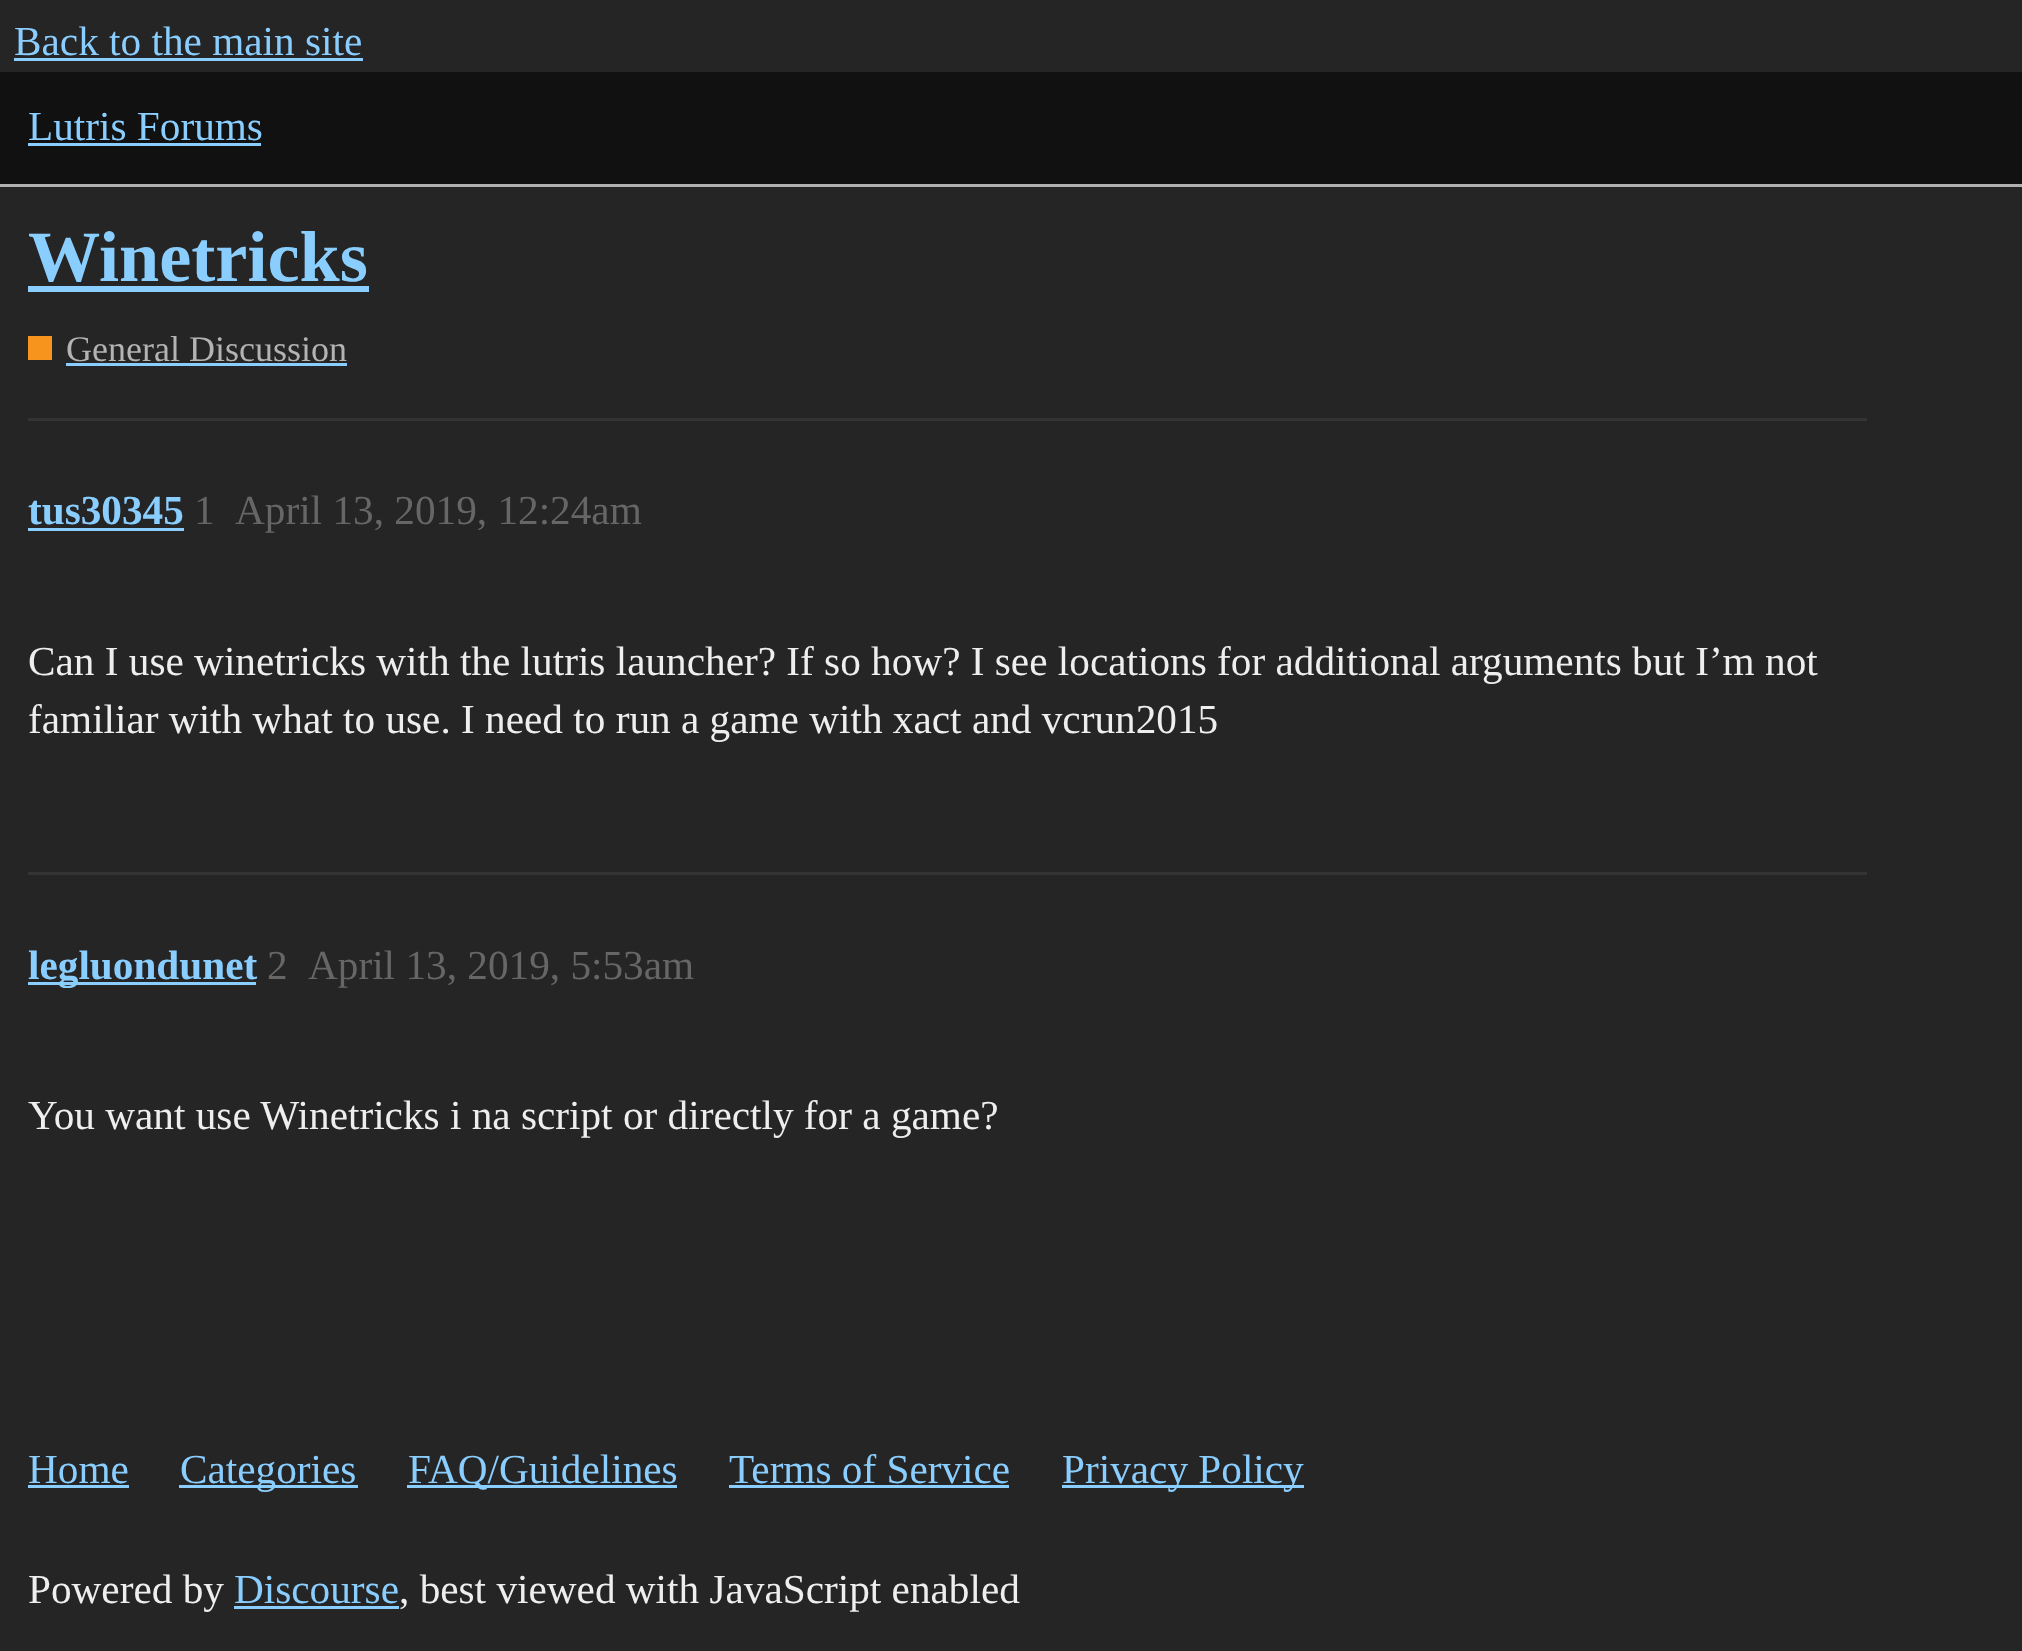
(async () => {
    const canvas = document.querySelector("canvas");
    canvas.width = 2022;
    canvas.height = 1651;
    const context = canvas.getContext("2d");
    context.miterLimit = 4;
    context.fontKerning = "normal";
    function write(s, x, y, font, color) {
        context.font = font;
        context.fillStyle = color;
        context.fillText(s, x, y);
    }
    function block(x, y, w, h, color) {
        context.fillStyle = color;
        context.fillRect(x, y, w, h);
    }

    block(0, 0, 2022, 1651, "rgb(37, 37, 37)");
    write("Back to the main site", 14, 55, "41.25px Liberation Serif", "rgb(138, 206, 255)");
    block(14, 58, 349, 3, "rgb(138, 206, 255)");
    block(0, 72, 2022, 112, "rgb(17, 17, 17)");
    block(0, 184, 2022, 3, "rgb(177, 177, 177)");
    write("Lutris Forums", 28, 140, "41.25px Liberation Serif", "rgb(138, 206, 255)");
    block(28, 143, 233, 3, "rgb(138, 206, 255)");
    write("Winetricks", 28, 281, "bold 72.25px Liberation Serif", "rgb(138, 206, 255)");
    block(28, 286, 341, 6, "rgb(138, 206, 255)");
    block(28, 336, 24, 24, "rgb(247, 148, 29)");
    write("General Discussion", 66, 361, "36px Liberation Serif", "rgb(179, 179, 179)");
    block(66, 363, 281, 3, "rgb(138, 206, 255)");
    block(28, 418, 1839, 3, "rgb(52, 52, 52)");
    write("tus30345", 28, 524, "bold 41.25px Liberation Serif", "rgb(138, 206, 255)");
    block(28, 528, 156, 3, "rgb(138, 206, 255)");
    write("1", 194, 524, "41.25px Liberation Serif", "rgb(102, 102, 102)");
    write("April 13, 2019, 12:24am", 235, 524, "41.25px Liberation Serif", "rgb(102, 102, 102)");
    write("Can I use winetricks with the lutris launcher? If so how? I see locations for additional arguments but I’m not", 28, 675, "41.25px Liberation Serif", "rgb(238, 238, 238)");
    write("familiar with what to use. I need to run a game with xact and vcrun2015", 28, 733, "41.25px Liberation Serif", "rgb(238, 238, 238)");
    block(28, 872, 1839, 3, "rgb(52, 52, 52)");
    block(28, 982, 228, 3, "rgb(138, 206, 255)");
    write("legluondunet", 28, 979, "bold 41.25px Liberation Serif", "rgb(138, 206, 255)");
    write("2", 267, 979, "41.25px Liberation Serif", "rgb(102, 102, 102)");
    write("April 13, 2019, 5:53am", 308, 979, "41.25px Liberation Serif", "rgb(102, 102, 102)");
    write("You want use Winetricks i na script or directly for a game?", 28, 1129, "41.25px Liberation Serif", "rgb(238, 238, 238)");
    write("Home", 28, 1483, "41.25px Liberation Serif", "rgb(138, 206, 255)");
    block(28, 1485, 101, 3, "rgb(138, 206, 255)");
    block(179, 1485, 179, 3, "rgb(138, 206, 255)");
    write("Categories", 180, 1483, "41.25px Liberation Serif", "rgb(138, 206, 255)");
    block(407, 1485, 270, 3, "rgb(138, 206, 255)");
    write("FAQ/Guidelines", 408, 1483, "41.25px Liberation Serif", "rgb(138, 206, 255)");
    write("Terms of Service", 729, 1483, "41.25px Liberation Serif", "rgb(138, 206, 255)");
    block(729, 1485, 280, 3, "rgb(138, 206, 255)");
    block(1062, 1485, 242, 3, "rgb(138, 206, 255)");
    write("Privacy Policy", 1062, 1483, "41.25px Liberation Serif", "rgb(138, 206, 255)");
    write("Powered by", 28, 1603, "41.25px Liberation Serif", "rgb(238, 238, 238)");
    write("Discourse", 234, 1603, "41.25px Liberation Serif", "rgb(138, 206, 255)");
    block(234, 1606, 165, 3, "rgb(138, 206, 255)");
    write(", best viewed with JavaScript enabled", 399, 1603, "41.25px Liberation Serif", "rgb(238, 238, 238)");
})();
